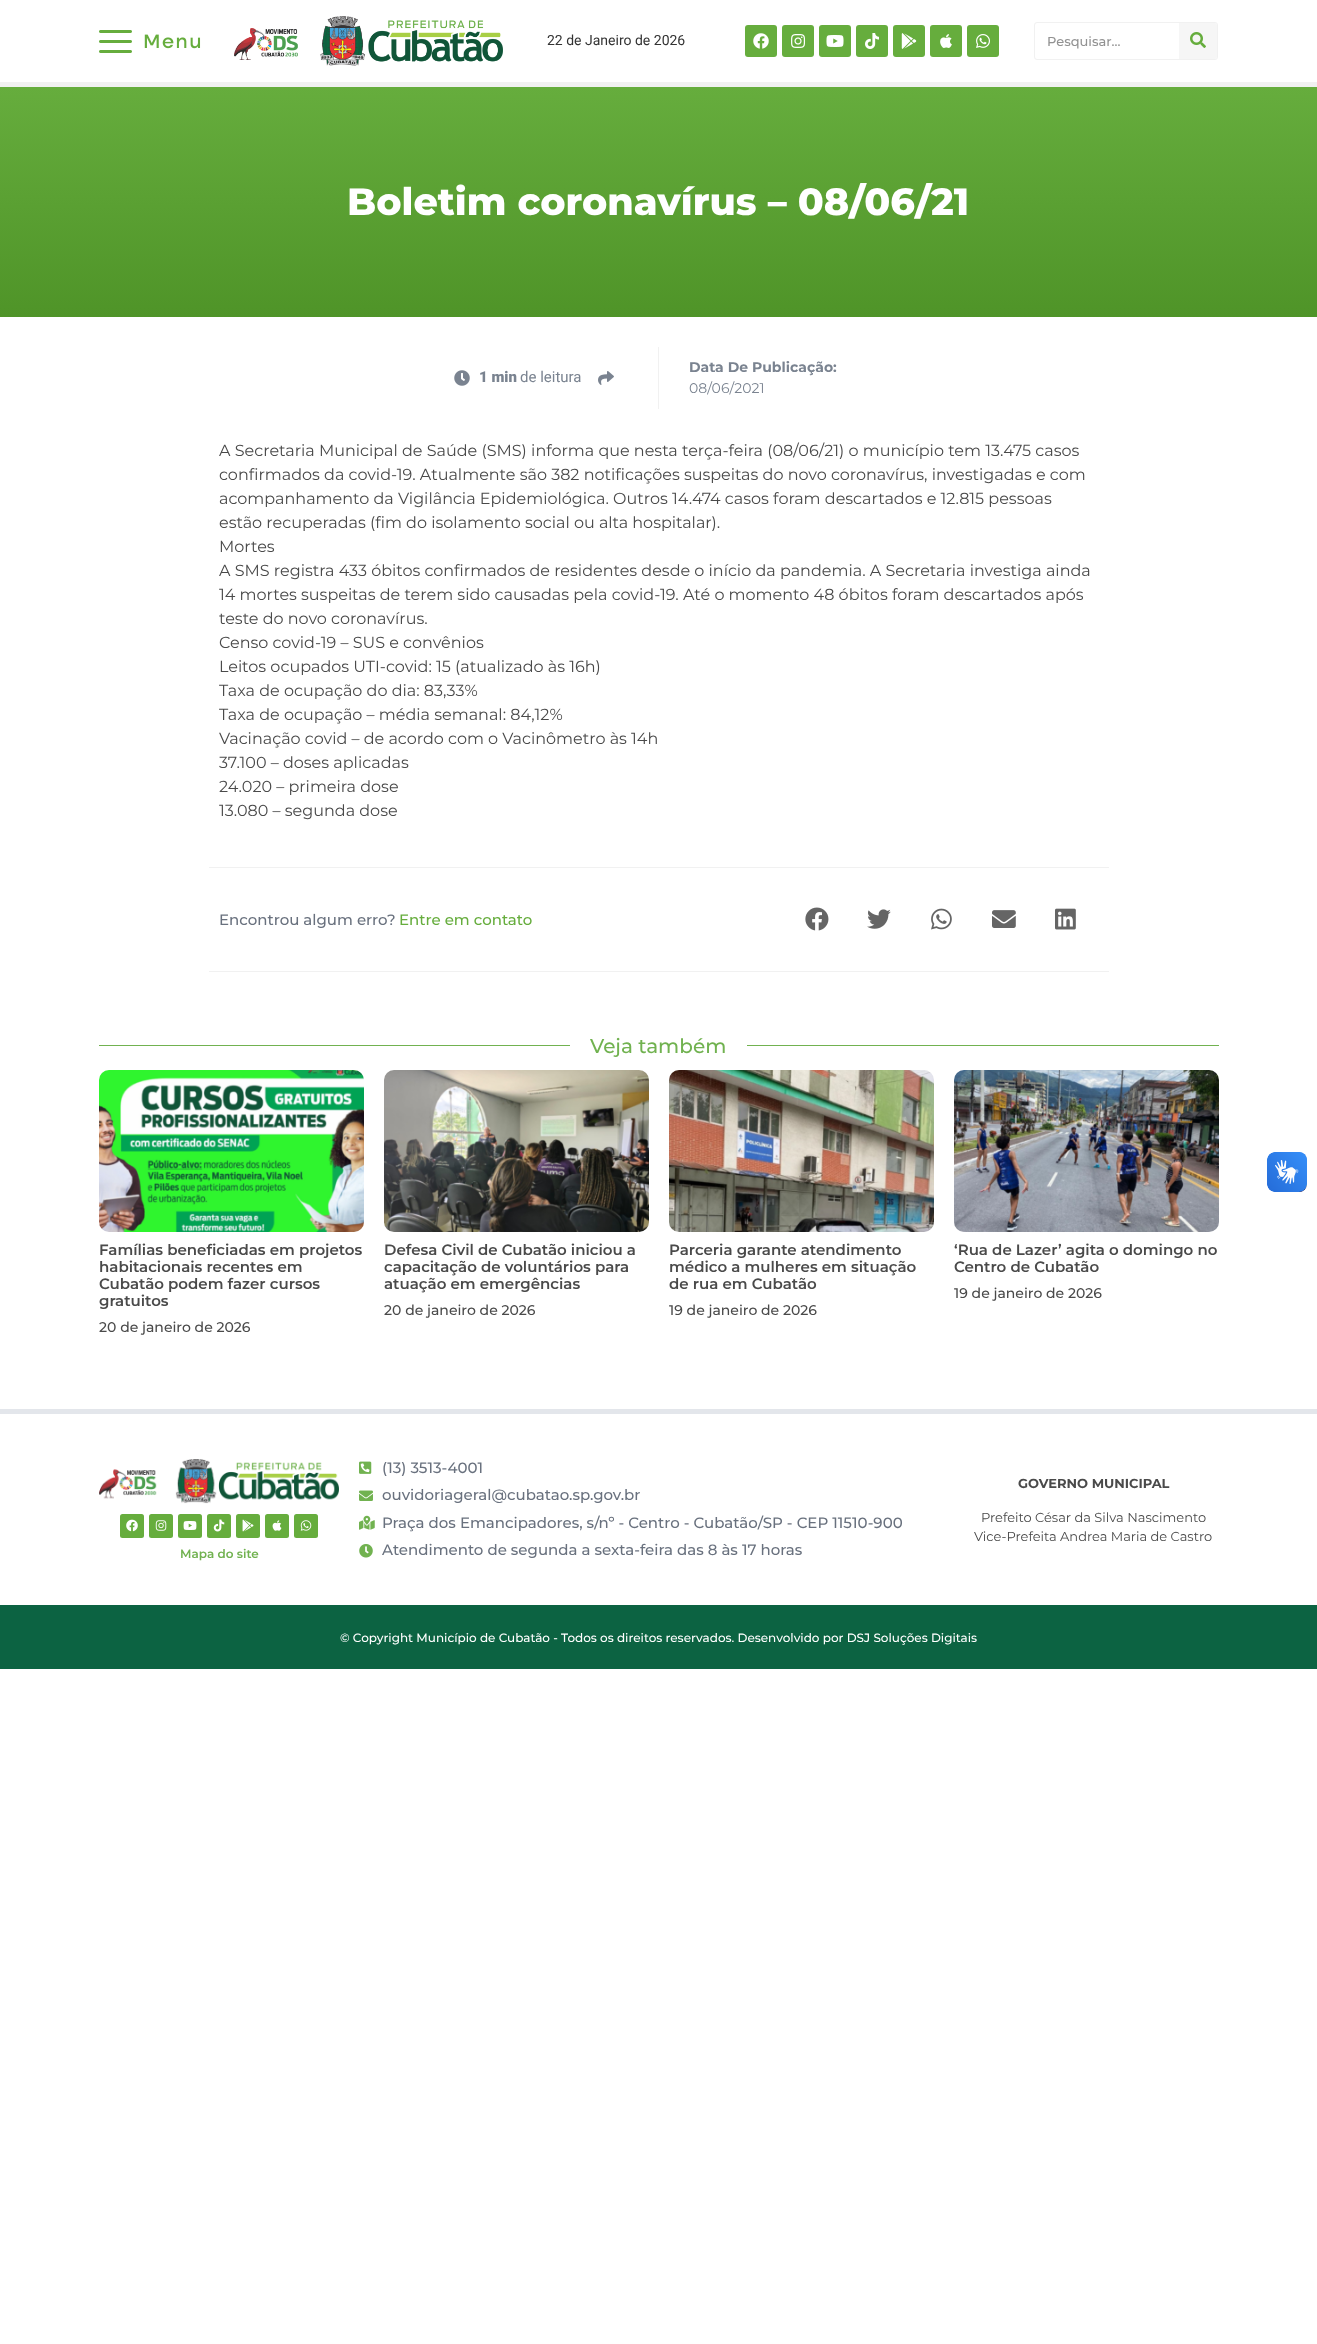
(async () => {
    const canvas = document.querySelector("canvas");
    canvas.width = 1317;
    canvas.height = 2344;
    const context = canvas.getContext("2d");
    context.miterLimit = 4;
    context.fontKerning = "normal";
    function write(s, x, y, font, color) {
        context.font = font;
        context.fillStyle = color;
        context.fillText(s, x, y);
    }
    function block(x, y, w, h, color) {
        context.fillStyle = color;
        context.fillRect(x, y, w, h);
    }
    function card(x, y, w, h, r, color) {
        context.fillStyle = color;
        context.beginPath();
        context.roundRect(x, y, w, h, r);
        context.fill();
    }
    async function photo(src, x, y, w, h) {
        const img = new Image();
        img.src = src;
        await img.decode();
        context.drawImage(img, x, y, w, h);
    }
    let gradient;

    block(0, 0, 1317, 2344, "rgb(255, 255, 255)");
    await photo("media/1.png", 99, 30, 102, 23);
    await photo("media/2.png", 234, 16, 269, 50);
    write("22 de Janeiro de 2026", 547, 45, "14px Roboto", "rgb(51, 51, 51)");
    card(745, 25, 32, 32, 3, "rgb(102, 173, 61)");
    await photo("media/3.png", 753, 33, 16, 16);
    card(782, 25, 32, 32, 3, "rgb(102, 173, 61)");
    await photo("media/4.png", 791, 34, 15, 14);
    card(819, 25, 32, 32, 3, "rgb(102, 173, 61)");
    await photo("media/5.png", 826, 35, 18, 12);
    card(856, 25, 32, 32, 3, "rgb(102, 173, 61)");
    await photo("media/6.png", 865, 33, 14, 16);
    card(893, 25, 32, 32, 3, "rgb(102, 173, 61)");
    await photo("media/7.png", 901, 33, 16, 16);
    card(930, 25, 32, 32, 3, "rgb(102, 173, 61)");
    await photo("media/8.png", 940, 34, 12, 14);
    card(967, 25, 32, 32, 3, "rgb(102, 173, 61)");
    await photo("media/9.png", 976, 34, 14, 14);
    context.beginPath();
    context.roundRect(1034.5, 22.5, 183, 37, 2.5);
    context.strokeStyle = "rgb(241, 241, 241)";
    context.stroke();
    write("Pesquisar...", 1047, 46, "500 13px Montserrat", "rgb(146, 146, 146)");
    context.fillStyle = "rgb(246, 246, 246)";
    context.beginPath();
    context.roundRect(1179, 23, 38, 36, [0, 2, 2, 0]);
    context.fill();
    await photo("media/10.png", 1190, 32, 16, 16);
    gradient = context.createLinearGradient(659, 87, 659, 317);
    gradient.addColorStop(0, "rgb(102, 173, 61)");
    gradient.addColorStop(1, "rgb(79, 148, 40)");
    context.fillStyle = gradient;
    context.fillRect(0, 87, 1317, 230);
    block(0, 82, 1317, 5, "rgb(241, 241, 241)");
    write("Boletim coronavírus – 08/06/21", 347, 215, "800 38px Montserrat", "rgb(255, 255, 255)");
    block(658, 347, 1, 62, "rgb(241, 241, 241)");
    await photo("media/11.png", 454, 370, 16, 16);
    write("1 min", 479, 382, "900 15px Roboto", "rgb(122, 131, 144)");
    write("de leitura", 520, 382, "15px Roboto", "rgb(122, 131, 144)");
    await photo("media/12.png", 598, 371, 16, 14);
    write("Data De Publicação:", 689, 372, "bold 14px Montserrat", "rgb(122, 131, 144)");
    write("08/06/2021", 689, 393, "14px Montserrat", "rgb(122, 131, 144)");
    write("A Secretaria Municipal de Saúde (SMS) informa que nesta terça-feira (08/06/21) o município tem 13.475 casos", 219, 456, "16px Montserrat", "rgb(74, 74, 74)");
    write("confirmados da covid-19. Atualmente são 382 notificações suspeitas do novo coronavírus, investigadas e com", 219, 480, "16px Montserrat", "rgb(74, 74, 74)");
    write("acompanhamento da Vigilância Epidemiológica. Outros 14.474 casos foram descartados e 12.815 pessoas", 219, 504, "16px Montserrat", "rgb(74, 74, 74)");
    write("estão recuperadas (fim do isolamento social ou alta hospitalar).", 219, 528, "16px Montserrat", "rgb(74, 74, 74)");
    write("Mortes", 219, 552, "16px Montserrat", "rgb(74, 74, 74)");
    write("A SMS registra 433 óbitos confirmados de residentes desde o início da pandemia. A Secretaria investiga ainda", 219, 576, "16px Montserrat", "rgb(74, 74, 74)");
    write("14 mortes suspeitas de terem sido causadas pela covid-19. Até o momento 48 óbitos foram descartados após", 219, 600, "16px Montserrat", "rgb(74, 74, 74)");
    write("teste do novo coronavírus.", 219, 624, "16px Montserrat", "rgb(74, 74, 74)");
    write("Censo covid-19 – SUS e convênios", 219, 648, "16px Montserrat", "rgb(74, 74, 74)");
    write("Leitos ocupados UTI-covid: 15 (atualizado às 16h)", 219, 672, "16px Montserrat", "rgb(74, 74, 74)");
    write("Taxa de ocupação do dia: 83,33%", 219, 696, "16px Montserrat", "rgb(74, 74, 74)");
    write("Taxa de ocupação – média semanal: 84,12%", 219, 720, "16px Montserrat", "rgb(74, 74, 74)");
    write("Vacinação covid – de acordo com o Vacinômetro às 14h", 219, 744, "16px Montserrat", "rgb(74, 74, 74)");
    write("37.100 – doses aplicadas", 219, 768, "16px Montserrat", "rgb(74, 74, 74)");
    write("24.020 – primeira dose", 219, 792, "16px Montserrat", "rgb(74, 74, 74)");
    write("13.080 – segunda dose", 219, 816, "16px Montserrat", "rgb(74, 74, 74)");
    block(209, 867, 900, 1, "rgb(241, 241, 241)");
    block(209, 971, 900, 1, "rgb(241, 241, 241)");
    write("Encontrou algum erro?", 219, 925, "500 15px Montserrat", "rgb(105, 113, 126)");
    write("Entre em contato", 399, 925, "500 15px Montserrat", "rgb(102, 173, 61)");
    await photo("media/13.png", 805, 907, 24, 24);
    await photo("media/14.png", 867, 909, 24, 20);
    await photo("media/15.png", 931, 908, 21, 22);
    await photo("media/16.png", 992, 910, 24, 18);
    await photo("media/17.png", 1055, 908, 21, 22);
    block(99, 1045, 471, 1, "rgb(113, 178, 80)");
    write("Veja também", 590, 1053, "500 20px Montserrat", "rgb(113, 178, 80)");
    block(747, 1045, 472, 1, "rgb(113, 178, 80)");
    await photo("media/18.png", 99, 1070, 265, 162);
    write("Famílias beneficiadas em projetos", 99, 1255, "600 15px Montserrat", "rgb(74, 74, 74)");
    write("habitacionais recentes em", 99, 1272, "600 15px Montserrat", "rgb(74, 74, 74)");
    write("Cubatão podem fazer cursos", 99, 1289, "600 15px Montserrat", "rgb(74, 74, 74)");
    write("gratuitos", 99, 1306, "600 15px Montserrat", "rgb(74, 74, 74)");
    write("20 de janeiro de 2026", 99, 1332, "500 14px Montserrat", "rgb(74, 74, 74)");
    await photo("media/19.png", 384, 1070, 265, 162);
    write("Defesa Civil de Cubatão iniciou a", 384, 1255, "600 15px Montserrat", "rgb(74, 74, 74)");
    write("capacitação de voluntários para", 384, 1272, "600 15px Montserrat", "rgb(74, 74, 74)");
    write("atuação em emergências", 384, 1289, "600 15px Montserrat", "rgb(74, 74, 74)");
    write("20 de janeiro de 2026", 384, 1315, "500 14px Montserrat", "rgb(74, 74, 74)");
    await photo("media/20.png", 669, 1070, 265, 162);
    write("Parceria garante atendimento", 669, 1255, "600 15px Montserrat", "rgb(74, 74, 74)");
    write("médico a mulheres em situação", 669, 1272, "600 15px Montserrat", "rgb(74, 74, 74)");
    write("de rua em Cubatão", 669, 1289, "600 15px Montserrat", "rgb(74, 74, 74)");
    write("19 de janeiro de 2026", 669, 1315, "500 14px Montserrat", "rgb(74, 74, 74)");
    await photo("media/21.png", 954, 1070, 265, 162);
    write("‘Rua de Lazer’ agita o domingo no", 954, 1255, "600 15px Montserrat", "rgb(74, 74, 74)");
    write("Centro de Cubatão", 954, 1272, "600 15px Montserrat", "rgb(74, 74, 74)");
    write("19 de janeiro de 2026", 954, 1298, "500 14px Montserrat", "rgb(74, 74, 74)");
    await photo("media/22.png", 1267, 1152, 40, 40);
    await photo("media/23.png", 1267, 1152, 40, 40);
    block(0, 1409, 1317, 5, "rgb(227, 230, 235)");
    await photo("media/24.png", 359, 1461, 13, 13);
    write("(13) 3513-4001", 382, 1473, "500 15px Montserrat", "rgb(105, 113, 126)");
    await photo("media/25.png", 359, 1490, 14, 11);
    write("ouvidoriageral@cubatao.sp.gov.br", 382, 1500, "500 15px Montserrat", "rgb(105, 113, 126)");
    await photo("media/26.png", 359, 1515, 16, 15);
    write("Praça dos Emancipadores, s/nº - Centro - Cubatão/SP - CEP 11510-900", 382, 1528, "500 15px Montserrat", "rgb(105, 113, 126)");
    await photo("media/27.png", 359, 1544, 14, 14);
    write("Atendimento de segunda a sexta-feira das 8 às 17 horas", 382, 1555, "500 15px Montserrat", "rgb(105, 113, 126)");
    write("GOVERNO MUNICIPAL", 1018, 1488, "bold 13px Montserrat", "rgb(74, 74, 74)");
    write("Prefeito César da Silva Nascimento", 981, 1522, "13px Montserrat", "rgb(74, 74, 74)");
    write("Vice-Prefeita Andrea Maria de Castro", 974, 1541, "13px Montserrat", "rgb(74, 74, 74)");
    await photo("media/28.png", 99, 1459, 240, 45);
    card(120, 1514, 24, 24, 2.5, "rgb(102, 173, 61)");
    await photo("media/29.png", 126, 1519, 12, 13);
    card(149, 1514, 24, 24, 2.5, "rgb(102, 173, 61)");
    await photo("media/30.png", 155, 1520, 12, 11);
    card(178, 1514, 24, 24, 2.5, "rgb(102, 173, 61)");
    await photo("media/31.png", 183, 1521, 14, 9);
    card(207, 1514, 24, 24, 2.5, "rgb(102, 173, 61)");
    await photo("media/32.png", 213, 1519, 12, 13);
    card(236, 1514, 24, 24, 2.5, "rgb(102, 173, 61)");
    await photo("media/33.png", 242, 1519, 12, 13);
    card(265, 1514, 24, 24, 2.5, "rgb(102, 173, 61)");
    await photo("media/34.png", 272, 1520, 10, 11);
    card(294, 1514, 24, 24, 2.5, "rgb(102, 173, 61)");
    await photo("media/35.png", 300, 1520, 12, 11);
    write("Mapa do site", 180, 1558, "600 12px Montserrat", "rgb(113, 178, 80)");
    block(0, 1605, 1317, 64, "rgb(12, 99, 66)");
    write("© Copyright Município de Cubatão - Todos os direitos reservados. Desenvolvido por DSJ Soluções Digitais", 340, 1642, "500 12px Montserrat", "rgb(255, 255, 255)");
})();
